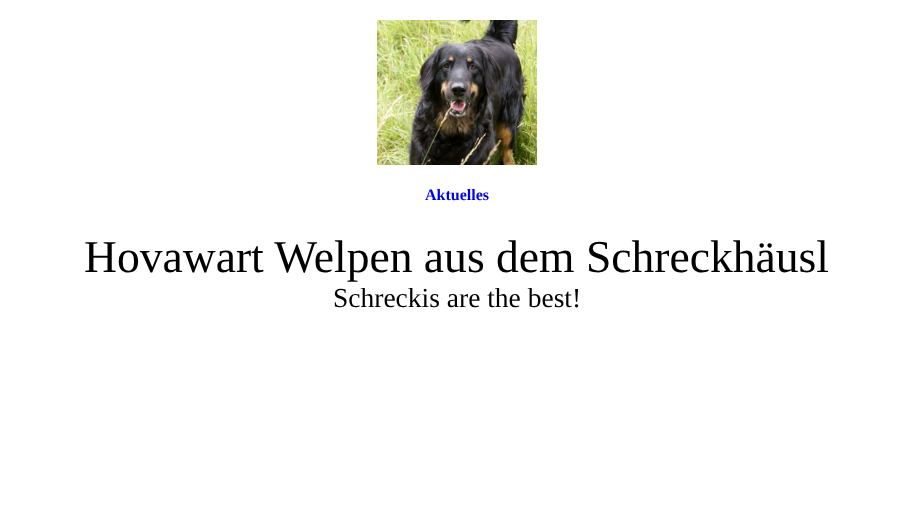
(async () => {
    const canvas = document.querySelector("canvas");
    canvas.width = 913;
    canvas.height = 524;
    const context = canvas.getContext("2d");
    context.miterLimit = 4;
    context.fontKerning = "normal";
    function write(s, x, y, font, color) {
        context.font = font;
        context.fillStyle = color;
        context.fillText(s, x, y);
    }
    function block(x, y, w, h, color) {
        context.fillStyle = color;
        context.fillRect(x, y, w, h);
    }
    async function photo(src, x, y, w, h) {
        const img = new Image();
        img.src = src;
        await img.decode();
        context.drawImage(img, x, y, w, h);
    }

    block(0, 0, 913, 524, "rgb(255, 255, 255)");
    await photo("media/1.png", 377, 20, 160, 145);
    write("Aktuelles", 425, 200, "bold 16px Liberation Serif", "rgb(0, 0, 238)");
    write("Hovawart Welpen aus dem Schreckhäusl", 84, 272, "45.6px Liberation Serif", "rgb(0, 0, 0)");
    write("Schreckis are the best!", 333, 307, "27.5px Liberation Serif", "rgb(0, 0, 0)");
})();
